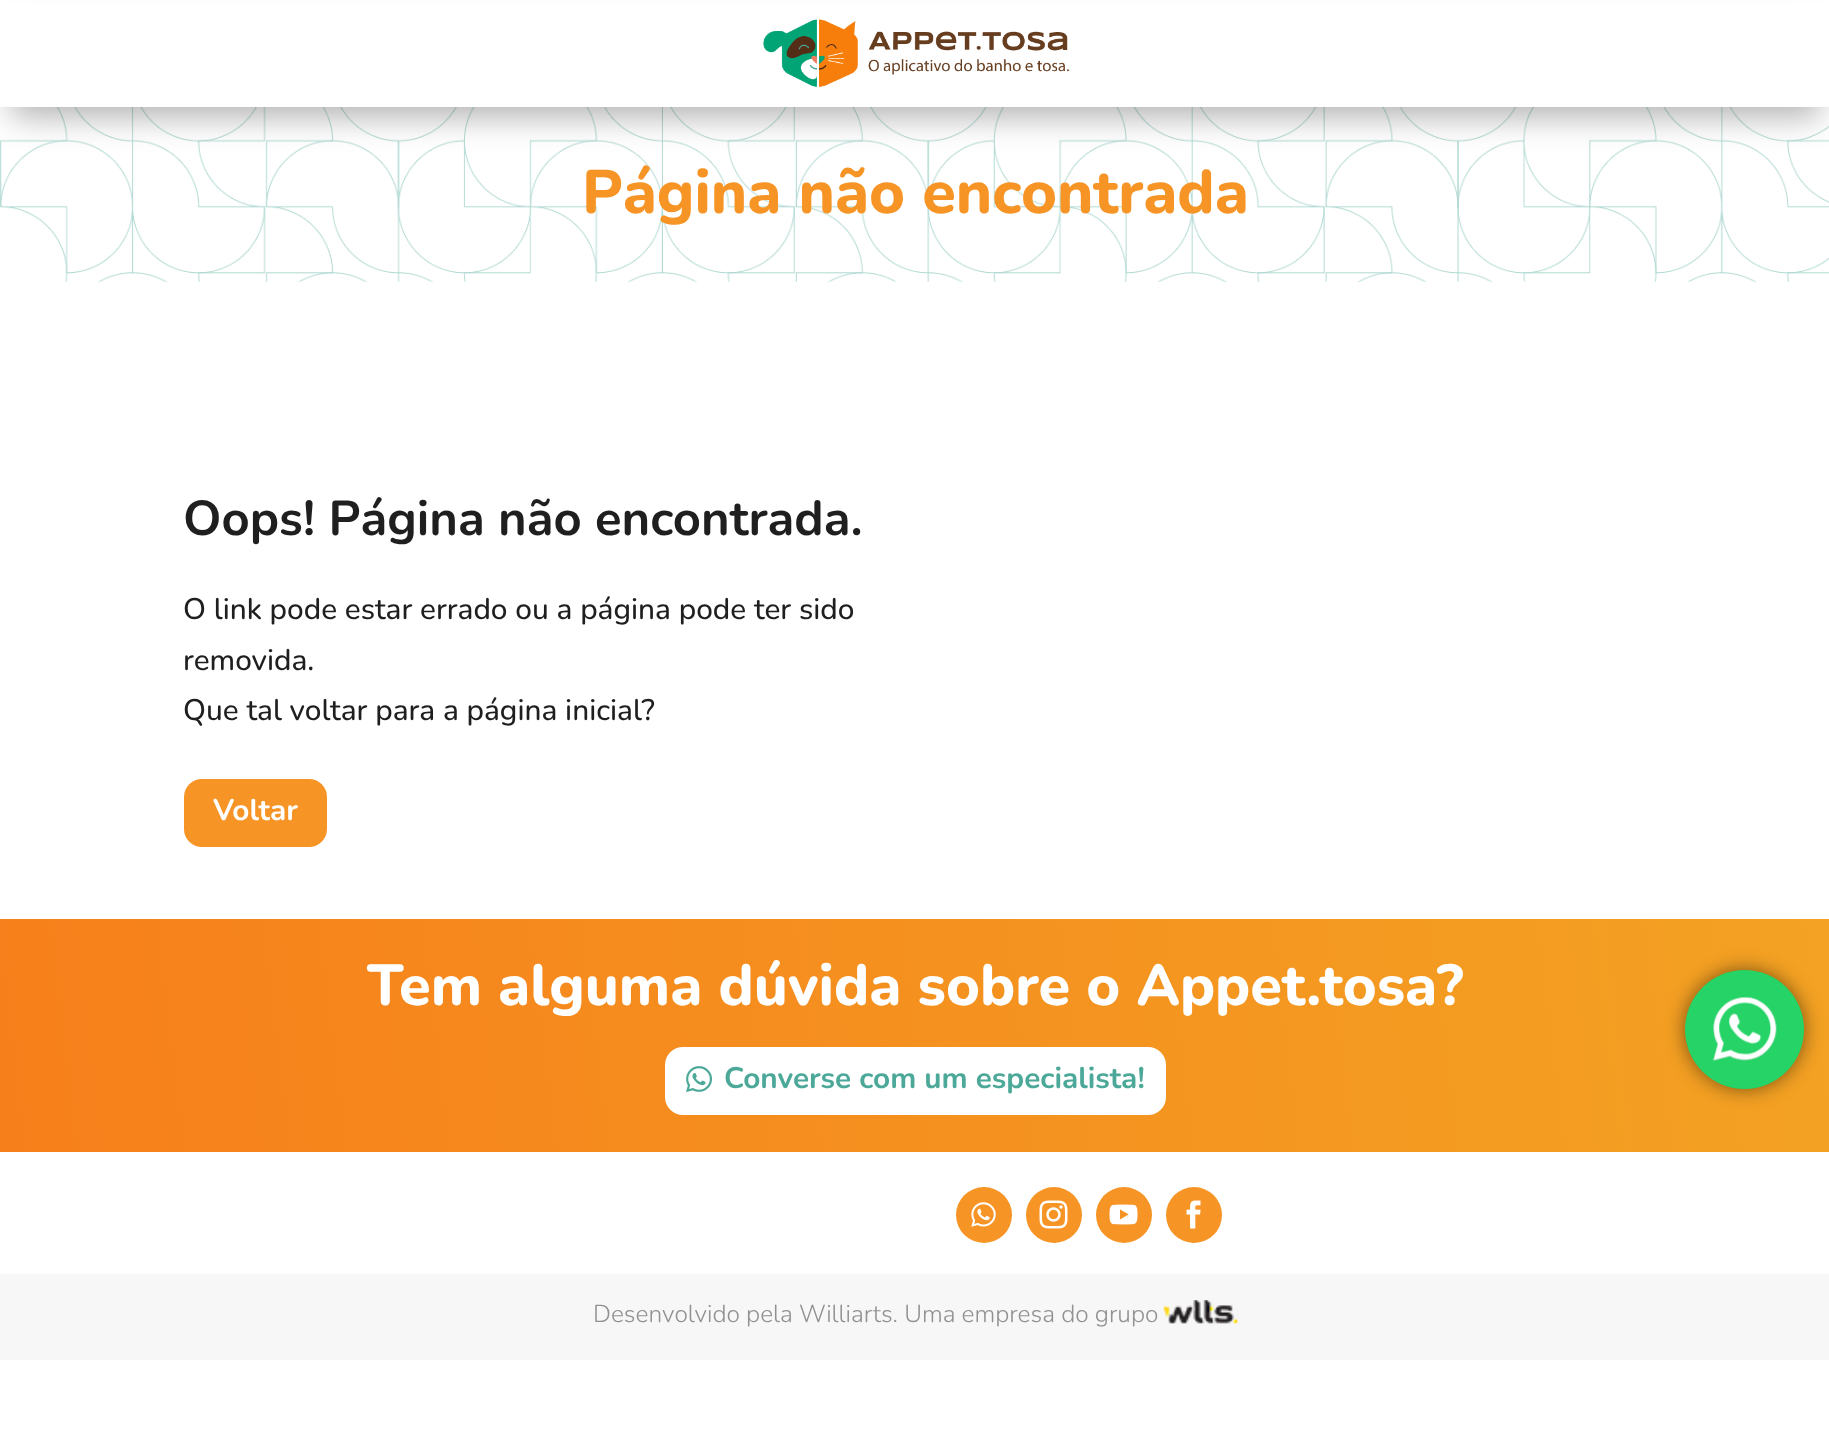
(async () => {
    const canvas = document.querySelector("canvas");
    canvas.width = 1829;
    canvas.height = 1437;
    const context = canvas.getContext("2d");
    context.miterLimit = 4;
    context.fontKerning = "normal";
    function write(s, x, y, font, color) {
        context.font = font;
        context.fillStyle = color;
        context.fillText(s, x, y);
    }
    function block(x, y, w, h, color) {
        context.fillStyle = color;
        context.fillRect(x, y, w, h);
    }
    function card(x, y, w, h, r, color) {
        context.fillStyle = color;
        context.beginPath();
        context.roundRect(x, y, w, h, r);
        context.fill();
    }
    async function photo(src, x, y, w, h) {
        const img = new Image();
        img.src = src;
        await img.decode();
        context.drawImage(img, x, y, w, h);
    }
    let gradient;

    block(0, 0, 1829, 1437, "rgb(255, 255, 255)");
    await photo("media/2.png", 0, 107, 1829, 175);
    context.fillStyle = "rgba(0, 0, 0, 0.3)";
    context.filter = "blur(16px)";
    context.beginPath();
    context.rect(11, 32, 1809, 85);
    context.fill();
    context.filter = "none";
    block(0, 3, 1829, 104, "rgb(255, 255, 255)");
    await photo("media/1.png", 763, 19, 307, 68);
    write("Página não encontrada", 582, 213, "800 61.25px Nunito", "rgb(247, 148, 38)");
    write("Oops! Página não encontrada.", 183, 535, "bold 49px Nunito", "rgb(31, 31, 31)");
    write("O link pode estar errado ou a página pode ter sido", 183, 619, "500 29.75px Nunito", "rgb(31, 31, 31)");
    write("removida.", 183, 670, "500 29.75px Nunito", "rgb(31, 31, 31)");
    write("Que tal voltar para a página inicial?", 183, 720, "500 29.75px Nunito", "rgb(31, 31, 31)");
    card(184, 779, 143, 68, 18, "rgb(247, 148, 38)");
    write("Voltar", 213, 820, "bold 29.75px Nunito", "rgb(255, 255, 255)");
    gradient = context.createLinearGradient(-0.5, 1148, 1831, 923);
    gradient.addColorStop(0, "rgb(247, 127, 27)");
    gradient.addColorStop(1, "rgb(243, 162, 35)");
    context.fillStyle = gradient;
    context.fillRect(0, 919, 1829, 233);
    write("Tem alguma dúvida sobre o Appet.tosa?", 367, 1005, "800 57.75px Nunito", "rgb(255, 255, 255)");
    card(665, 1047, 501, 68, 18, "rgb(255, 255, 255)");
    await photo("media/3.png", 686, 1066, 26, 26);
    write("Converse com um especialista!", 724, 1088, "bold 29.75px Nunito", "rgb(76, 168, 152)");
    context.fillStyle = "rgb(247, 148, 38)";
    context.beginPath();
    context.arc(984, 1215, 28, 0, Math.PI * 2);
    context.fill();
    await photo("media/4.png", 971, 1202, 25, 25);
    context.beginPath();
    context.arc(1054, 1215, 28, 0, Math.PI * 2);
    context.fill();
    await photo("media/5.png", 1039, 1200, 29, 29);
    context.beginPath();
    context.arc(1124, 1215, 28, 0, Math.PI * 2);
    context.fill();
    await photo("media/6.png", 1109, 1204, 29, 21);
    context.beginPath();
    context.arc(1194, 1215, 28, 0, Math.PI * 2);
    context.fill();
    await photo("media/7.png", 1186, 1200, 15, 29);
    block(0, 1274, 1829, 86, "rgb(247, 247, 247)");
    write("Desenvolvido pela Williarts. Uma empresa do grupo", 593, 1322, "300 24.5px Nunito", "rgb(145, 145, 145)");
    await photo("media/8.png", 1163, 1300, 75, 24);
    context.fillStyle = "rgba(0, 0, 0, 0.5)";
    context.filter = "blur(9.5px)";
    context.beginPath();
    context.roundRect(1685, 970, 119, 119, 59.5);
    context.fill();
    context.filter = "none";
    context.fillStyle = "rgb(37, 211, 102)";
    context.beginPath();
    context.arc(1744.5, 1029.5, 59.5, 0, Math.PI * 2);
    context.fill();
    await photo("media/9.png", 1713, 997, 64, 64);
})();
